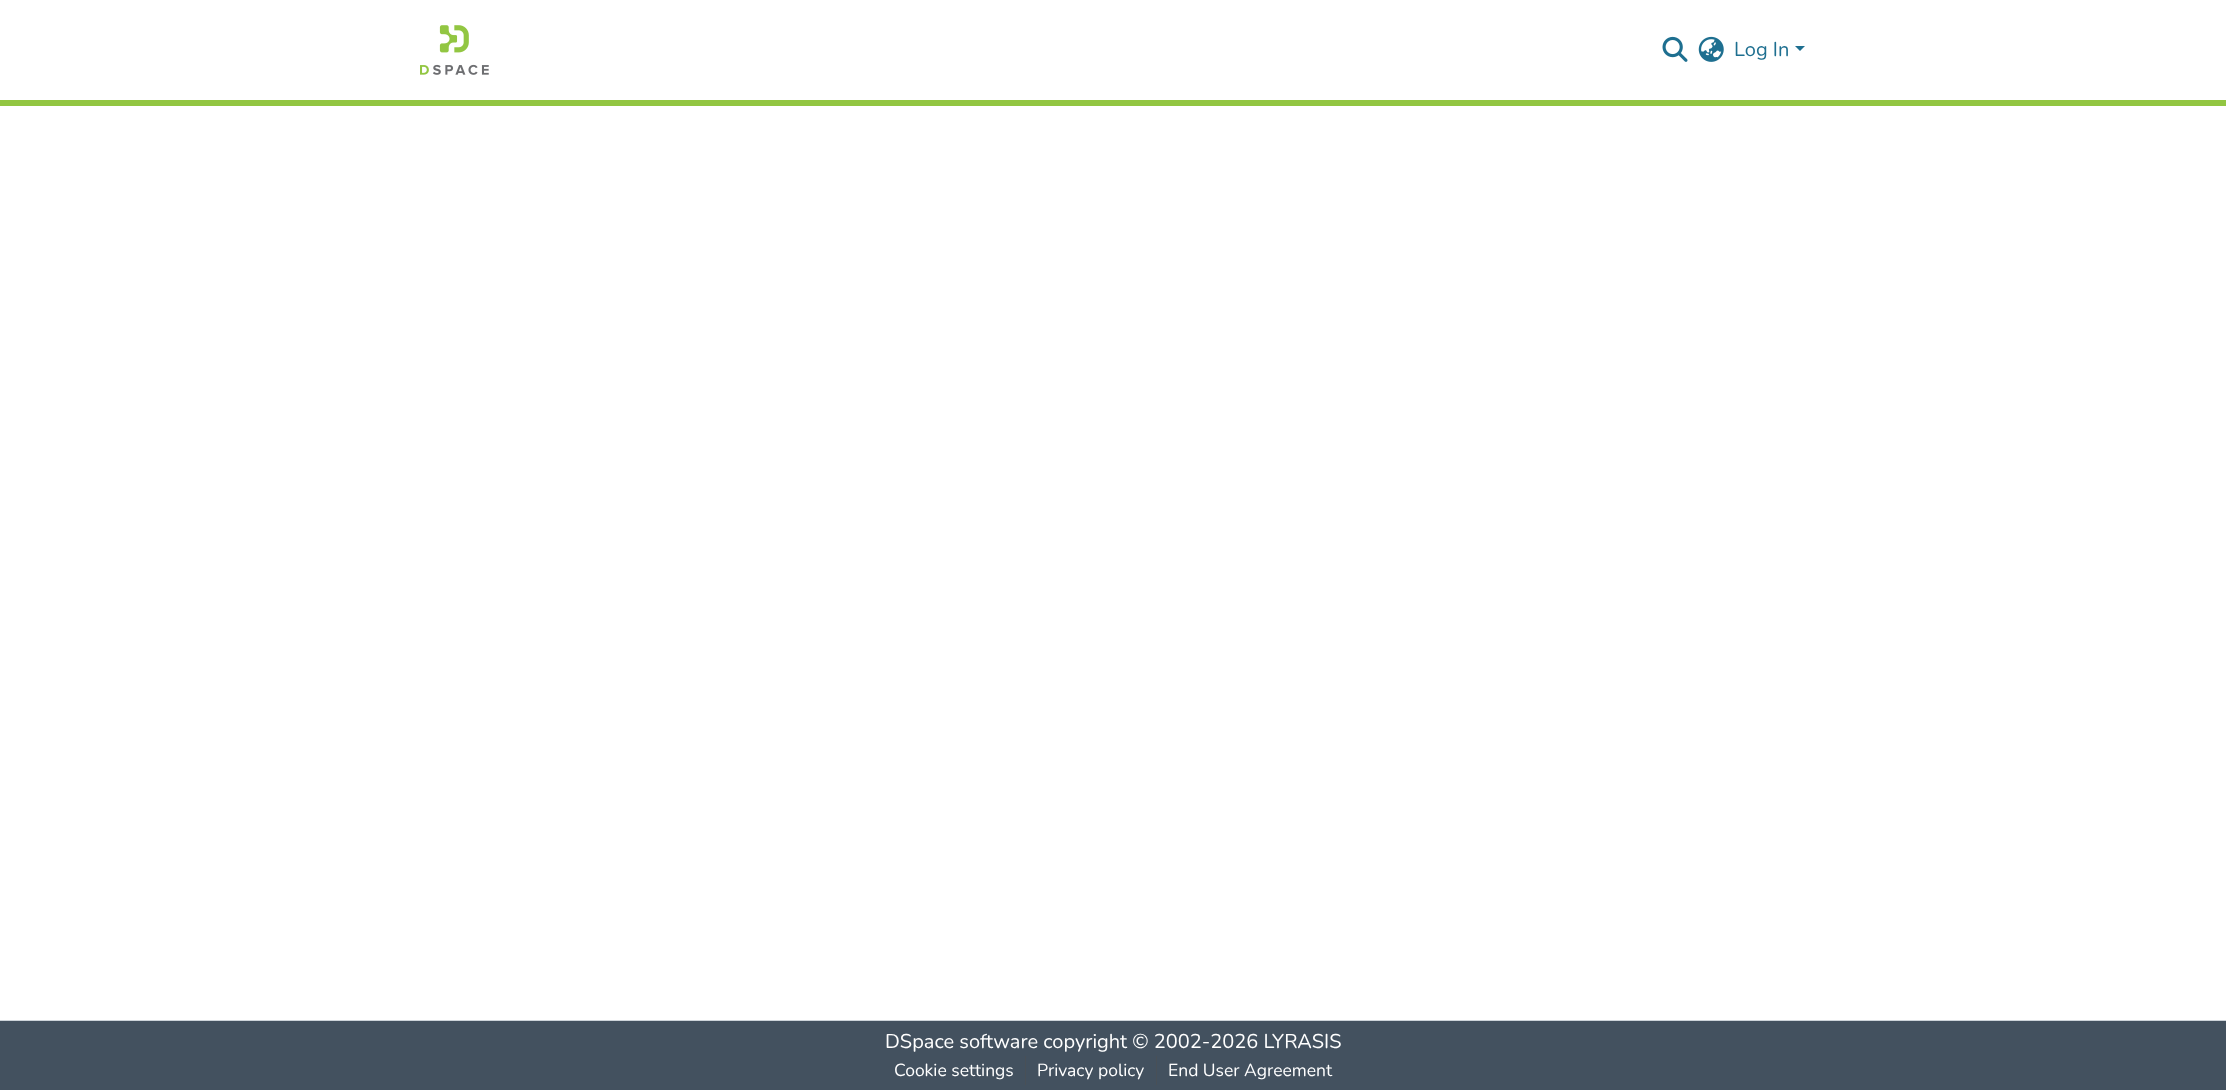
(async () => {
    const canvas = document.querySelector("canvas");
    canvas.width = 2226;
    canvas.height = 1090;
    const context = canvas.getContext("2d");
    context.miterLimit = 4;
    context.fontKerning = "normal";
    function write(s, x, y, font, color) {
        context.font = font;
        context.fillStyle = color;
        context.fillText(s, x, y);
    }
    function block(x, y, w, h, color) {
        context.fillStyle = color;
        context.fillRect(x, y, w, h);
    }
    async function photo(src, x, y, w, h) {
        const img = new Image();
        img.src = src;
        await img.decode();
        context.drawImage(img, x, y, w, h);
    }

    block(0, 0, 2226, 1090, "rgb(255, 255, 255)");
    block(0, 100, 2226, 6, "rgb(146, 198, 66)");
    await photo("media/1.png", 420, 25, 69, 50);
    await photo("media/2.png", 1662, 36, 26, 26);
    await photo("media/3.png", 1698, 36, 26, 26);
    write("Log In", 1734, 56, "20px Nunito", "rgb(30, 111, 144)");
    context.beginPath();
    context.moveTo(1795, 46);
    context.lineTo(1805, 46);
    context.lineTo(1800, 51);
    context.closePath();
    context.fill();
    block(0, 1021, 2226, 69, "rgb(67, 81, 95)");
    block(0, 1020, 2226, 1, "rgb(206, 212, 218)");
    write("DSpace software copyright © 2002-2026 LYRASIS", 885, 1048, "20px Nunito", "rgb(255, 255, 255)");
    write("Cookie settings", 894, 1076, "17.5px Nunito", "rgb(255, 255, 255)");
    block(1025, 1056, 1, 29, "rgb(73, 80, 87)");
    write("Privacy policy", 1037, 1076, "17.5px Nunito", "rgb(255, 255, 255)");
    block(1156, 1056, 1, 29, "rgb(73, 80, 87)");
    write("End User Agreement", 1168, 1076, "17.5px Nunito", "rgb(255, 255, 255)");
})();
